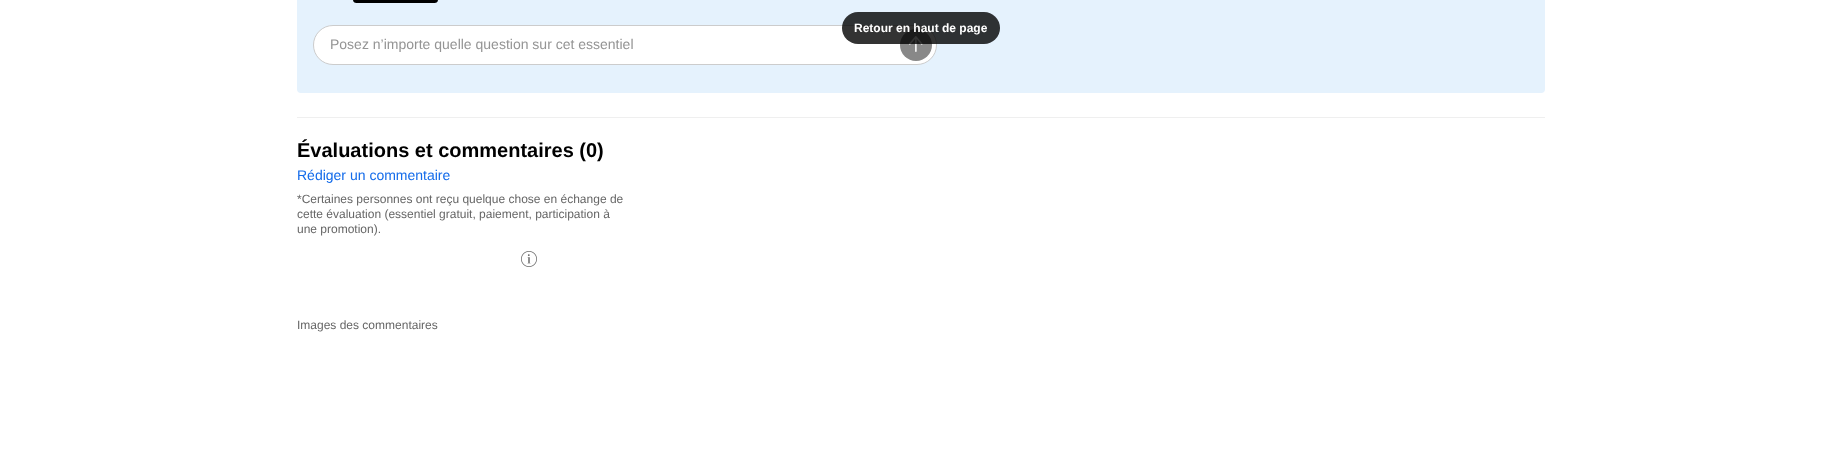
(async () => {
    const canvas = document.querySelector("canvas");
    canvas.width = 1842;
    canvas.height = 451;
    const context = canvas.getContext("2d");
    context.miterLimit = 4;
    context.fontKerning = "normal";
    function write(s, x, y, font, color) {
        context.font = font;
        context.fillStyle = color;
        context.fillText(s, x, y);
    }
    function block(x, y, w, h, color) {
        context.fillStyle = color;
        context.fillRect(x, y, w, h);
    }
    function card(x, y, w, h, r, color) {
        context.fillStyle = color;
        context.beginPath();
        context.roundRect(x, y, w, h, r);
        context.fill();
    }
    async function photo(src, x, y, w, h) {
        const img = new Image();
        img.src = src;
        await img.decode();
        context.drawImage(img, x, y, w, h);
    }

    block(0, 0, 1842, 451, "rgb(255, 255, 255)");
    card(297, -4, 1248, 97, 4, "rgb(229, 242, 253)");
    context.fillStyle = "rgb(255, 255, 255)";
    context.beginPath();
    context.roundRect(313.5, 25.5, 623, 39, 19.5);
    context.fill();
    context.strokeStyle = "rgb(204, 204, 204)";
    context.stroke();
    context.fillStyle = "rgb(136, 136, 136)";
    context.beginPath();
    context.arc(916, 45, 16, 0, Math.PI * 2);
    context.fill();
    await photo("media/1.png", 909, 36, 14, 16);
    card(842, 12, 158, 32, 16, "rgba(0, 0, 0, 0.8)");
    write("Retour en haut de page", 854, 32, "bold 12px Liberation Sans", "rgb(255, 255, 255)");
    card(353, -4, 85, 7, 4, "rgb(0, 0, 0)");
    write("Posez n’importe quelle question sur cet essentiel", 330, 49, "14px Liberation Sans", "rgb(148, 148, 148)");
    block(297, 117, 1248, 1, "rgb(239, 239, 239)");
    write("Évaluations et commentaires (0)", 297, 157, "bold 20px Liberation Sans", "rgb(0, 0, 0)");
    write("Rédiger un commentaire", 297, 180, "14px Liberation Sans", "rgb(19, 107, 234)");
    write("*Certaines personnes ont reçu quelque chose en échange de", 297, 203, "12px Liberation Sans", "rgb(102, 102, 102)");
    write("cette évaluation (essentiel gratuit, paiement, participation à", 297, 218, "12px Liberation Sans", "rgb(102, 102, 102)");
    write("une promotion).", 297, 233, "12px Liberation Sans", "rgb(102, 102, 102)");
    await photo("media/2.png", 521, 251, 16, 16);
    write("Images des commentaires", 297, 329, "12px Liberation Sans", "rgb(102, 102, 102)");
})();
